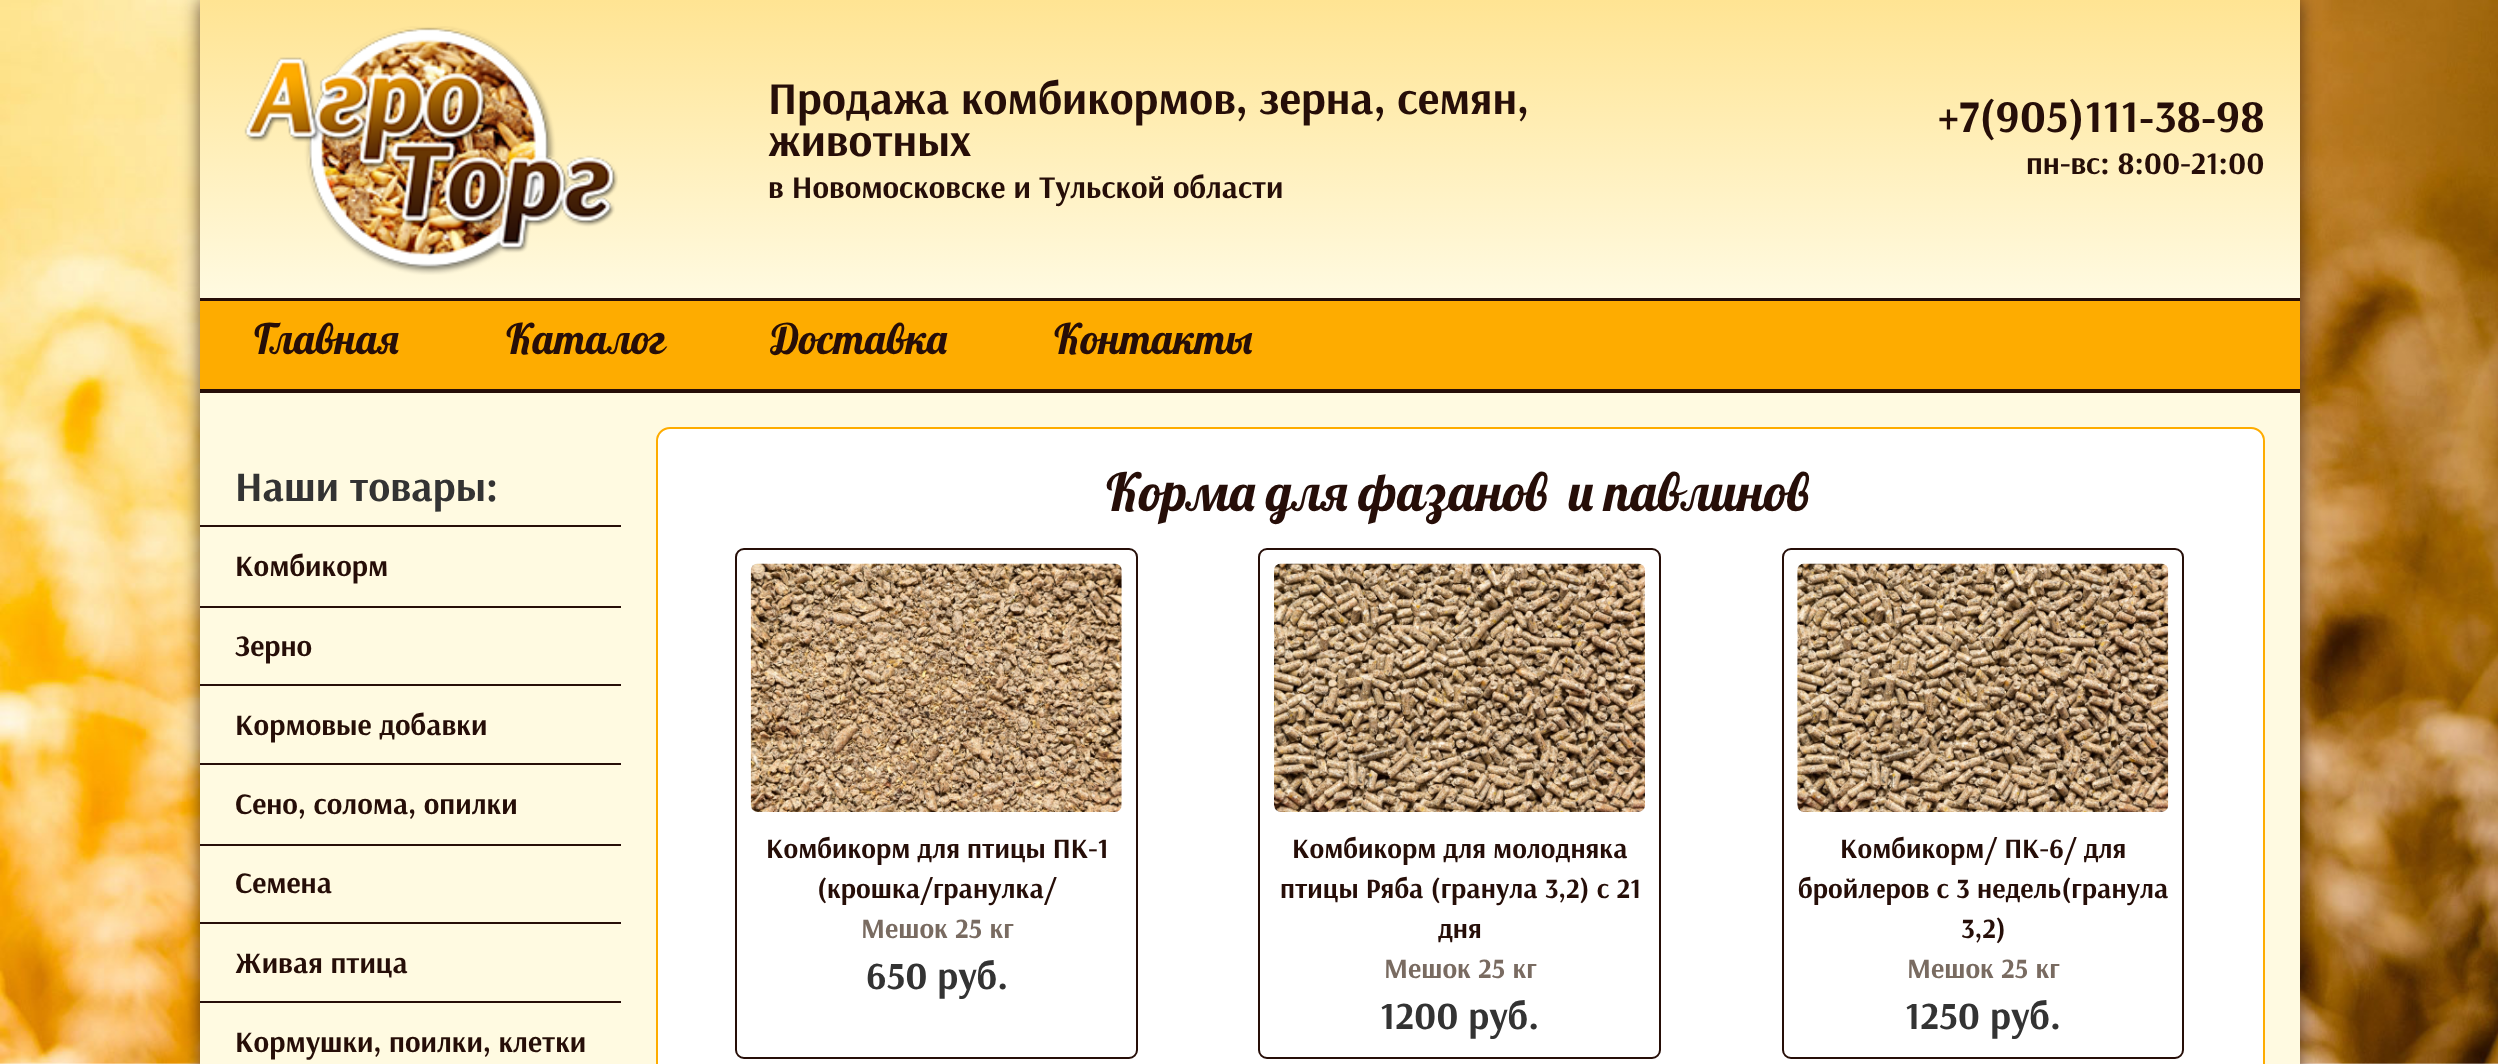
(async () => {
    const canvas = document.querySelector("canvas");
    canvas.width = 2498;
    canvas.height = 1064;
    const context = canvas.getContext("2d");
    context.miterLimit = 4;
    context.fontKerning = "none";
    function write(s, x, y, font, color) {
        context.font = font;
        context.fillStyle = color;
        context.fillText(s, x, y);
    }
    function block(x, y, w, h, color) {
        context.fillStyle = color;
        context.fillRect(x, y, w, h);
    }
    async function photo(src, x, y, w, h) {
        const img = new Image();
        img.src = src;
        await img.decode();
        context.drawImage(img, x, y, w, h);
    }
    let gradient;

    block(0, 0, 2498, 1064, "rgb(255, 255, 255)");
    await photo("media/1.png", 0, 0, 2498, 1064);
    context.fillStyle = "rgba(38, 14, 8, 0.7)";
    context.filter = "blur(9px)";
    context.beginPath();
    context.rect(200, 0, 2100, 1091);
    context.fill();
    context.filter = "none";
    block(200, 393, 2100, 671, "rgb(255, 250, 225)");
    gradient = context.createLinearGradient(1250, 298, 1250, 0);
    gradient.addColorStop(0, "rgb(255, 250, 225)");
    gradient.addColorStop(1, "rgb(255, 228, 147)");
    context.fillStyle = gradient;
    context.fillRect(200, 0, 2100, 298);
    block(200, 298, 2100, 3, "rgb(38, 14, 8)");
    await photo("media/2.png", 244, 26, 374, 249);
    write("Продажа комбикормов, зерна, семян,", 768, 114, "bold 45.5px Arsenal", "rgb(38, 14, 8)");
    write("животных", 768, 156, "bold 45.5px Arsenal", "rgb(38, 14, 8)");
    write("в Новомосковске и Тульской области", 768, 198, "bold 31.5px Arsenal", "rgb(38, 14, 8)");
    write("+7(905)111‑38‑98", 1938, 132, "bold 45.5px Arsenal", "rgb(38, 14, 8)");
    write("пн-вс: 8:00-21:00", 2026, 174, "bold 31.5px Arsenal", "rgb(38, 14, 8)");
    block(200, 301, 2100, 88, "rgb(254, 172, 0)");
    write("Главная", 254, 354, "42px Lobster", "rgb(38, 14, 8)");
    write("Каталог", 506, 354, "42px Lobster", "rgb(38, 14, 8)");
    write("Доставка", 771, 354, "42px Lobster", "rgb(38, 14, 8)");
    write("Контакты", 1054, 354, "42px Lobster", "rgb(38, 14, 8)");
    block(200, 389, 2100, 4, "rgb(38, 14, 8)");
    write("Наши товары:", 235, 501, "bold 42px Arsenal", "rgb(51, 51, 51)");
    block(200, 525, 421, 2, "rgb(38, 14, 8)");
    block(200, 606, 421, 2, "rgb(38, 14, 8)");
    write("Комбикорм", 235, 576, "bold 29.75px Arsenal", "rgb(38, 14, 8)");
    block(200, 684, 421, 2, "rgb(38, 14, 8)");
    write("Зерно", 235, 656, "bold 29.75px Arsenal", "rgb(38, 14, 8)");
    block(200, 763, 421, 2, "rgb(38, 14, 8)");
    write("Кормовые добавки", 235, 735, "bold 29.75px Arsenal", "rgb(38, 14, 8)");
    block(200, 844, 421, 2, "rgb(38, 14, 8)");
    write("Сено, солома, опилки", 235, 814, "bold 29.75px Arsenal", "rgb(38, 14, 8)");
    block(200, 922, 421, 2, "rgb(38, 14, 8)");
    write("Семена", 235, 893, "bold 29.75px Arsenal", "rgb(38, 14, 8)");
    block(200, 1001, 421, 2, "rgb(38, 14, 8)");
    write("Живая птица", 235, 973, "bold 29.75px Arsenal", "rgb(38, 14, 8)");
    write("Кормушки, поилки, клетки", 235, 1052, "bold 29.75px Arsenal", "rgb(38, 14, 8)");
    context.fillStyle = "rgb(255, 255, 255)";
    context.beginPath();
    context.roundRect(657, 428, 1607, 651, 13);
    context.fill();
    context.strokeStyle = "rgb(254, 172, 0)";
    context.lineWidth = 2;
    context.stroke();
    write("Корма для фазанов", 1106, 511, "52.5px Lobster", "rgb(38, 14, 8)");
    write("и павлинов", 1569, 511, "52.5px Lobster", "rgb(38, 14, 8)");
    context.beginPath();
    context.roundRect(736, 549, 401, 509, 8);
    context.strokeStyle = "rgb(38, 14, 8)";
    context.stroke();
    await photo("media/3.png", 750, 563, 372, 249);
    write("Комбикорм для птицы ПК-1", 766, 858, "bold 28px Arsenal", "rgb(38, 14, 8)");
    write("(крошка/гранулка/", 817, 898, "bold 28px Arsenal", "rgb(38, 14, 8)");
    write("Мешок 25 кг", 861, 938, "bold 28px Arsenal", "rgb(121, 107, 97)");
    write("650 руб.", 866, 989, "bold 38.5px Arsenal", "rgb(51, 51, 51)");
    context.beginPath();
    context.roundRect(1259, 549, 401, 509, 8);
    context.stroke();
    await photo("media/4.png", 1274, 563, 371, 249);
    write("Комбикорм для молодняка", 1292, 858, "bold 28px Arsenal", "rgb(38, 14, 8)");
    write("птицы Ряба (гранула 3,2) с 21", 1280, 898, "bold 28px Arsenal", "rgb(38, 14, 8)");
    write("дня", 1438, 938, "bold 28px Arsenal", "rgb(38, 14, 8)");
    write("Мешок 25 кг", 1384, 978, "bold 28px Arsenal", "rgb(121, 107, 97)");
    write("1200 руб.", 1380, 1029, "bold 38.5px Arsenal", "rgb(51, 51, 51)");
    context.beginPath();
    context.roundRect(1783, 549, 400, 509, 8);
    context.stroke();
    await photo("media/5.png", 1797, 563, 372, 249);
    write("Комбикорм/ ПК-6/ для", 1840, 858, "bold 28px Arsenal", "rgb(38, 14, 8)");
    write("бройлеров с 3 недель(гранула", 1798, 898, "bold 28px Arsenal", "rgb(38, 14, 8)");
    write("3,2)", 1961, 938, "bold 28px Arsenal", "rgb(38, 14, 8)");
    write("Мешок 25 кг", 1907, 978, "bold 28px Arsenal", "rgb(121, 107, 97)");
    write("1250 руб.", 1905, 1029, "bold 38.5px Arsenal", "rgb(51, 51, 51)");
})();
